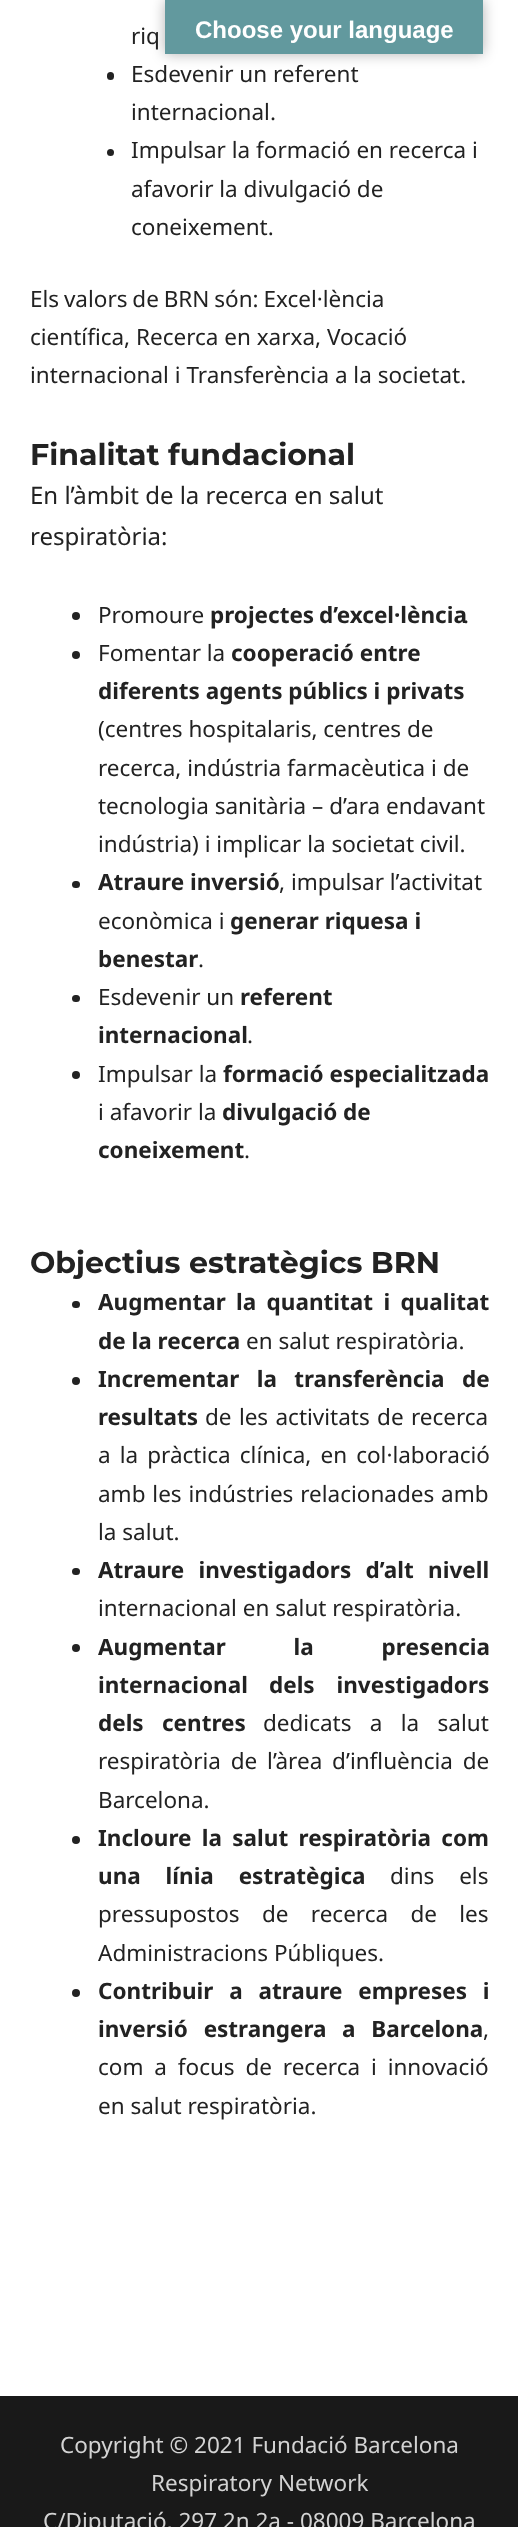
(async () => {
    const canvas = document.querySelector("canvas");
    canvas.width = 518;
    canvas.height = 2527;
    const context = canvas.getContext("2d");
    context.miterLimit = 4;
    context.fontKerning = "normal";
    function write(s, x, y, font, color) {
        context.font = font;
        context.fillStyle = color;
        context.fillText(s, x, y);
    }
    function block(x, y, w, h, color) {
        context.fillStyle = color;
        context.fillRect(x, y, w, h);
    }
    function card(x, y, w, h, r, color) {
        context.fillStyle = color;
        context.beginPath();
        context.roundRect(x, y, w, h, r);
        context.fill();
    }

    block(0, 0, 518, 2527, "rgb(255, 255, 255)");
    context.fillStyle = "rgba(0, 0, 0, 0.3)";
    context.filter = "blur(7px)";
    context.beginPath();
    context.rect(165, 0, 318, 54);
    context.fill();
    context.filter = "none";
    block(165, 0, 318, 54, "rgb(98, 153, 158)");
    write("Choose your language", 195, 38, "bold 24px Liberation Sans", "rgb(255, 255, 255)");
    write("riq", 131, 44, "22.5px Noto Sans", "rgb(34, 34, 34)");
    card(107, 72, 7, 8, 3.5, "rgb(34, 34, 34)");
    write("Esdevenir un referent", 131, 82, "22.5px Noto Sans", "rgb(34, 34, 34)");
    write("internacional.", 131, 120, "22.5px Noto Sans", "rgb(34, 34, 34)");
    context.beginPath();
    context.arc(110.5, 152.5, 3.5, 0, Math.PI * 2);
    context.fill();
    write("Impulsar la formació en recerca i", 131, 158, "22.5px Noto Sans", "rgb(34, 34, 34)");
    write("afavorir la divulgació de", 131, 197, "22.5px Noto Sans", "rgb(34, 34, 34)");
    write("coneixement.", 131, 235, "22.5px Noto Sans", "rgb(34, 34, 34)");
    context.wordSpacing = "-1px";
    write("Els valors de BRN són: Excel·lència", 30, 307, "22.5px Noto Sans", "rgb(34, 34, 34)");
    context.wordSpacing = "0px";
    write("científica, Recerca en xarxa, Vocació", 30, 345, "22.5px Noto Sans", "rgb(34, 34, 34)");
    write("internacional i Transferència a la societat.", 30, 383, "22.5px Noto Sans", "rgb(34, 34, 34)");
    write("Finalitat fundacional", 30, 465, "100 30px Montserrat", "rgb(34, 34, 34)");
    write("En l’àmbit de la recerca en salut", 30, 504, "24px Noto Sans", "rgb(34, 34, 34)");
    write("respiratòria:", 30, 545, "24px Noto Sans", "rgb(34, 34, 34)");
    context.beginPath();
    context.arc(76, 616, 4, 0, Math.PI * 2);
    context.fill();
    write("Promoure", 98, 623, "22.5px Noto Sans", "rgb(34, 34, 34)");
    context.wordSpacing = "-1px";
    write("projectes d’excel·lència", 210, 623, "bold 22.5px Noto Sans", "rgb(34, 34, 34)");
    context.wordSpacing = "0px";
    write(".", 463, 623, "22.5px Noto Sans", "rgb(34, 34, 34)");
    context.beginPath();
    context.arc(76, 655, 4, 0, Math.PI * 2);
    context.fill();
    write("Fomentar la", 98, 661, "22.5px Noto Sans", "rgb(34, 34, 34)");
    write("cooperació entre", 231, 661, "bold 22.5px Noto Sans", "rgb(34, 34, 34)");
    write("diferents agents públics i privats", 98, 699, "bold 22.5px Noto Sans", "rgb(34, 34, 34)");
    write("(centres hospitalaris, centres de", 98, 737, "22.5px Noto Sans", "rgb(34, 34, 34)");
    write("recerca, indústria farmacèutica i de", 98, 776, "22.5px Noto Sans", "rgb(34, 34, 34)");
    write("tecnologia sanitària – d’ara endavant", 98, 814, "22.5px Noto Sans", "rgb(34, 34, 34)");
    write("indústria) i implicar la societat civil.", 98, 852, "22.5px Noto Sans", "rgb(34, 34, 34)");
    card(72, 881, 8, 7, 3.5, "rgb(34, 34, 34)");
    write("Atraure inversió", 98, 890, "bold 22.5px Noto Sans", "rgb(34, 34, 34)");
    write(", impulsar l’activitat", 279, 890, "22.5px Noto Sans", "rgb(34, 34, 34)");
    write("econòmica i", 98, 929, "22.5px Noto Sans", "rgb(34, 34, 34)");
    write("generar riquesa i", 230, 929, "bold 22.5px Noto Sans", "rgb(34, 34, 34)");
    write("benestar", 98, 967, "bold 22.5px Noto Sans", "rgb(34, 34, 34)");
    write(".", 198, 967, "22.5px Noto Sans", "rgb(34, 34, 34)");
    card(72, 995, 8, 7, 3.5, "rgb(34, 34, 34)");
    write("Esdevenir un", 98, 1005, "22.5px Noto Sans", "rgb(34, 34, 34)");
    write("referent", 240, 1005, "bold 22.5px Noto Sans", "rgb(34, 34, 34)");
    write("internacional", 98, 1043, "bold 22.5px Noto Sans", "rgb(34, 34, 34)");
    write(".", 247, 1043, "22.5px Noto Sans", "rgb(34, 34, 34)");
    context.beginPath();
    context.arc(76, 1075, 4, 0, Math.PI * 2);
    context.fill();
    write("Impulsar la", 98, 1082, "22.5px Noto Sans", "rgb(34, 34, 34)");
    write("formació especialitzada", 223, 1082, "bold 22.5px Noto Sans", "rgb(34, 34, 34)");
    write("i afavorir la", 98, 1120, "22.5px Noto Sans", "rgb(34, 34, 34)");
    write("divulgació de", 222, 1120, "bold 22.5px Noto Sans", "rgb(34, 34, 34)");
    write("coneixement", 98, 1158, "bold 22.5px Noto Sans", "rgb(34, 34, 34)");
    write(".", 244, 1158, "22.5px Noto Sans", "rgb(34, 34, 34)");
    write("Objectius estratègics BRN", 30, 1273, "100 30px Montserrat", "rgb(34, 34, 34)");
    card(72, 1301, 8, 7, 3.5, "rgb(34, 34, 34)");
    context.wordSpacing = "4.5px";
    write("Augmentar la quantitat i qualitat", 98, 1310, "bold 22.5px Noto Sans", "rgb(34, 34, 34)");
    context.wordSpacing = "0px";
    write("de la recerca", 98, 1349, "bold 22.5px Noto Sans", "rgb(34, 34, 34)");
    write("en salut respiratòria.", 246, 1349, "22.5px Noto Sans", "rgb(34, 34, 34)");
    context.beginPath();
    context.arc(76, 1381, 4, 0, Math.PI * 2);
    context.fill();
    context.wordSpacing = "11.5px";
    write("Incrementar la transferència de", 98, 1387, "bold 22.5px Noto Sans", "rgb(34, 34, 34)");
    context.wordSpacing = "0px";
    write("resultats", 98, 1425, "bold 22.5px Noto Sans", "rgb(34, 34, 34)");
    context.wordSpacing = "1.5px";
    write("de les activitats de recerca", 205, 1425, "22.5px Noto Sans", "rgb(34, 34, 34)");
    context.wordSpacing = "3.25px";
    write("a la pràctica clínica, en col·laboració", 98, 1463, "22.5px Noto Sans", "rgb(34, 34, 34)");
    context.wordSpacing = "1px";
    write("amb les indústries relacionades amb", 98, 1502, "22.5px Noto Sans", "rgb(34, 34, 34)");
    context.wordSpacing = "0px";
    write("la salut.", 98, 1540, "22.5px Noto Sans", "rgb(34, 34, 34)");
    card(72, 1568, 8, 7, 3.5, "rgb(34, 34, 34)");
    context.wordSpacing = "8.5px";
    write("Atraure investigadors d’alt nivell", 98, 1578, "bold 22.5px Noto Sans", "rgb(34, 34, 34)");
    context.wordSpacing = "0px";
    write("internacional en salut respiratòria.", 98, 1616, "22.5px Noto Sans", "rgb(34, 34, 34)");
    context.beginPath();
    context.arc(76, 1648, 4, 0, Math.PI * 2);
    context.fill();
    context.wordSpacing = "62px";
    write("Augmentar la presencia", 98, 1655, "bold 22.5px Noto Sans", "rgb(34, 34, 34)");
    context.wordSpacing = "0px";
    write("internacional", 98, 1693, "bold 22.5px Noto Sans", "rgb(34, 34, 34)");
    context.wordSpacing = "16px";
    write("dels investigadors", 269, 1693, "bold 22.5px Noto Sans", "rgb(34, 34, 34)");
    context.wordSpacing = "12.5px";
    write("dels centres", 98, 1731, "bold 22.5px Noto Sans", "rgb(34, 34, 34)");
    write("dedicats a la salut", 263, 1731, "22.5px Noto Sans", "rgb(34, 34, 34)");
    context.wordSpacing = "4px";
    write("respiratòria de l’àrea d’influència de", 98, 1769, "22.5px Noto Sans", "rgb(34, 34, 34)");
    context.wordSpacing = "0px";
    write("Barcelona.", 98, 1808, "22.5px Noto Sans", "rgb(34, 34, 34)");
    context.beginPath();
    context.arc(76, 1840, 4, 0, Math.PI * 2);
    context.fill();
    context.wordSpacing = "4.5px";
    write("Incloure la salut respiratòria com", 98, 1846, "bold 22.5px Noto Sans", "rgb(34, 34, 34)");
    context.wordSpacing = "19px";
    write("una línia estratègica", 98, 1884, "bold 22.5px Noto Sans", "rgb(34, 34, 34)");
    write("dins els", 390, 1884, "22.5px Noto Sans", "rgb(34, 34, 34)");
    context.wordSpacing = "16.5px";
    write("pressupostos de recerca de les", 98, 1922, "22.5px Noto Sans", "rgb(34, 34, 34)");
    context.wordSpacing = "0px";
    write("Administracions Públiques.", 98, 1961, "22.5px Noto Sans", "rgb(34, 34, 34)");
    context.beginPath();
    context.arc(76, 1993, 4, 0, Math.PI * 2);
    context.fill();
    context.wordSpacing = "10px";
    write("Contribuir a atraure empreses i", 98, 1999, "bold 22.5px Noto Sans", "rgb(34, 34, 34)");
    write("inversió estrangera", 98, 2037, "bold 22.5px Noto Sans", "rgb(34, 34, 34)");
    write("a Barcelona", 342, 2037, "bold 22.5px Noto Sans", "rgb(34, 34, 34)");
    context.wordSpacing = "0px";
    write(",", 483, 2037, "22.5px Noto Sans", "rgb(34, 34, 34)");
    context.wordSpacing = "5px";
    write("com a focus de recerca i innovació", 98, 2075, "22.5px Noto Sans", "rgb(34, 34, 34)");
    context.wordSpacing = "0px";
    write("en salut respiratòria.", 98, 2114, "22.5px Noto Sans", "rgb(34, 34, 34)");
    block(0, 2396, 518, 131, "rgb(25, 25, 25)");
    write("Copyright © 2021 Fundació Barcelona", 60, 2453, "22.5px Noto Sans", "rgb(211, 211, 211)");
    write("Respiratory Network", 151, 2491, "22.5px Noto Sans", "rgb(211, 211, 211)");
    write("C/Diputació, 297 2n 2a - 08009 Barcelona", 43, 2529, "22.5px Noto Sans", "rgb(211, 211, 211)");
})();
